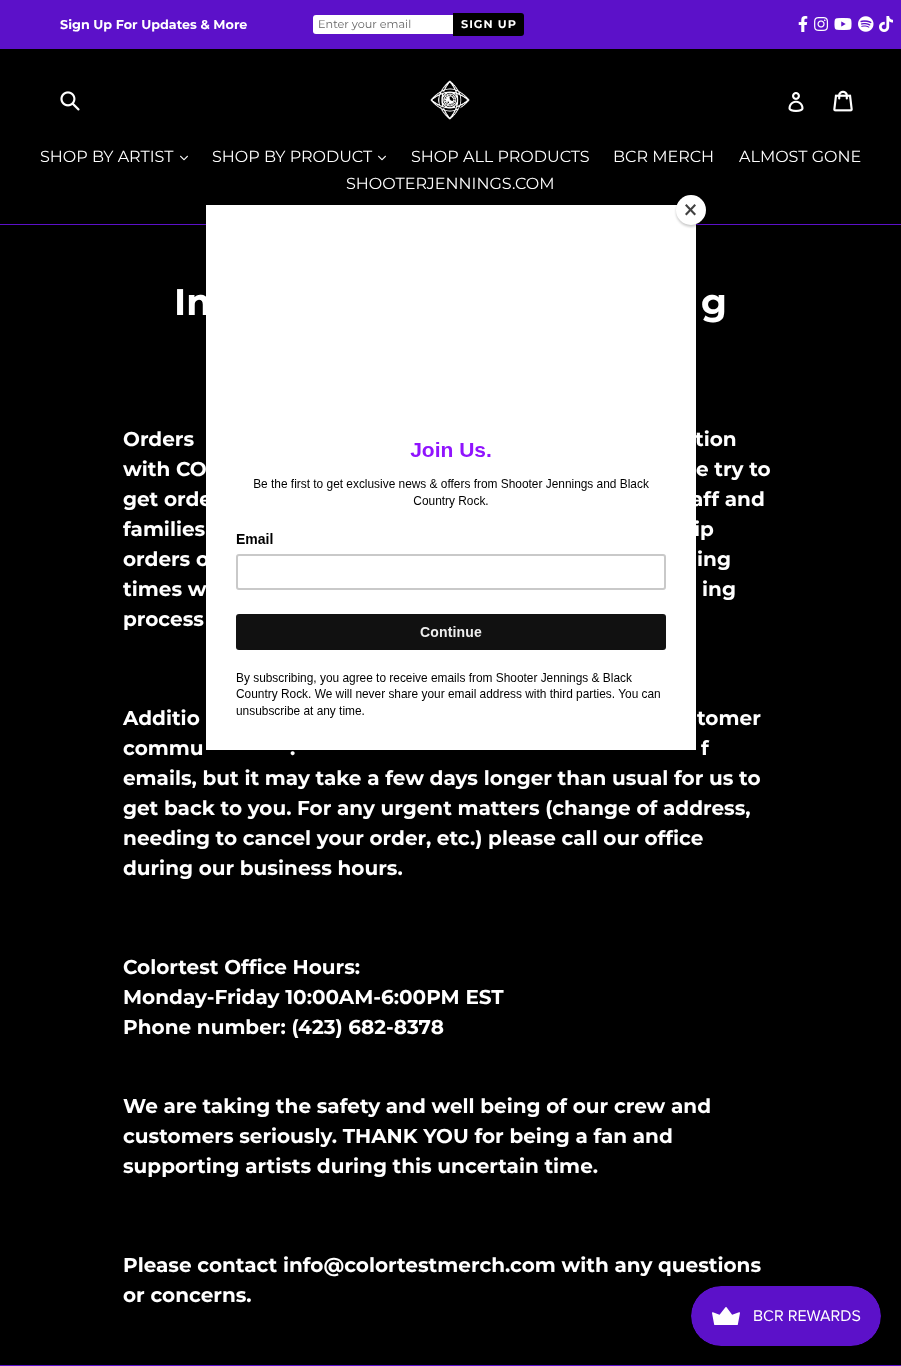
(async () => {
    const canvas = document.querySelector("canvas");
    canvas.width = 901;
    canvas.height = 1366;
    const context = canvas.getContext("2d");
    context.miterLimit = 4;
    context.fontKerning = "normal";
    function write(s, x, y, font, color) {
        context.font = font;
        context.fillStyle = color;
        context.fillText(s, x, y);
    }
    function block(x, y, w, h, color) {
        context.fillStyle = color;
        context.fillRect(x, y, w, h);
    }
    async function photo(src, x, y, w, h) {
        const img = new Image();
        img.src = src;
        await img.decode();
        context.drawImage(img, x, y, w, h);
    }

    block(0, 0, 901, 1366, "rgb(0, 0, 0)");
    block(0, 0, 901, 49, "rgb(92, 17, 201)");
    write("Sign Up For Updates & More", 60, 29, "bold 12.75px Montserrat", "rgb(255, 255, 255)");
    context.beginPath();
    context.roundRect(313, 15, 140, 19, [3, 0, 0, 3]);
    context.fill();
    write("Enter your email", 318, 28, "11.25px Montserrat", "rgb(102, 102, 102)");
    context.fillStyle = "rgb(0, 0, 0)";
    context.beginPath();
    context.roundRect(453, 13, 71, 23, [0, 3, 3, 0]);
    context.fill();
    context.letterSpacing = "1px";
    write("SIGN UP", 461, 28, "bold 11.25px Montserrat", "rgb(255, 255, 255)");
    await photo("media/1.png", 798, 16, 10, 16);
    await photo("media/2.png", 814, 17, 15, 14);
    await photo("media/3.png", 834, 18, 18, 12);
    await photo("media/4.png", 858, 16, 16, 16);
    await photo("media/5.png", 879, 16, 14, 16);
    await photo("media/6.png", 60, 91, 20, 20);
    await photo("media/7.png", 430, 80, 40, 40);
    await photo("media/8.png", 788, 92, 16, 20);
    await photo("media/9.png", 833, 90, 20, 22);
    block(0, 224, 901, 1, "rgb(92, 17, 201)");
    context.letterSpacing = "0px";
    write("SHOP BY ARTIST", 40, 162, "16px Montserrat", "rgb(255, 255, 255)");
    await photo("media/10.png", 180, 155, 8, 6);
    write("SHOP BY PRODUCT", 212, 162, "16px Montserrat", "rgb(255, 255, 255)");
    await photo("media/10.png", 378, 155, 8, 6);
    write("SHOP ALL PRODUCTS", 411, 162, "16px Montserrat", "rgb(255, 255, 255)");
    write("BCR MERCH", 613, 162, "16px Montserrat", "rgb(255, 255, 255)");
    write("ALMOST GONE", 739, 162, "16px Montserrat", "rgb(255, 255, 255)");
    write("SHOOTERJENNINGS.COM", 346, 189, "16px Montserrat", "rgb(255, 255, 255)");
    context.fillStyle = "rgba(0, 0, 0, 0.2)";
    context.filter = "blur(2px)";
    context.beginPath();
    context.rect(206, 207, 490, 545);
    context.fill();
    context.filter = "none";
    write("Im", 174, 315, "bold 37px Montserrat", "rgb(255, 255, 255)");
    write("tion", 695, 446, "bold 20px Montserrat", "rgb(255, 255, 255)");
    write("with CO", 123, 476, "bold 20px Montserrat", "rgb(255, 255, 255)");
    write("get orde", 123, 506, "bold 20px Montserrat", "rgb(255, 255, 255)");
    write("aff and", 691, 506, "bold 20px Montserrat", "rgb(255, 255, 255)");
    write("ip", 694, 536, "bold 20px Montserrat", "rgb(255, 255, 255)");
    write("orders o", 123, 566, "bold 20px Montserrat", "rgb(255, 255, 255)");
    write("times w", 123, 596, "bold 20px Montserrat", "rgb(255, 255, 255)");
    await photo("media/11.png", 206, 205, 490, 545);
    context.fillStyle = "rgba(0, 0, 0, 0.2)";
    context.filter = "blur(1px)";
    context.beginPath();
    context.roundRect(676, 197, 30, 30, 15);
    context.fill();
    context.filter = "none";
    context.fillStyle = "rgb(255, 255, 255)";
    context.beginPath();
    context.arc(691, 210, 15, 0, Math.PI * 2);
    context.fill();
    context.fillStyle = "rgb(65, 65, 65)";
    context.beginPath();
    context.moveTo(694.5, 204);
    context.lineTo(696, 205.5);
    context.lineTo(686.5, 215.5);
    context.lineTo(685, 214);
    context.closePath();
    context.fill();
    context.beginPath();
    context.moveTo(685, 205.5);
    context.lineTo(686.5, 204);
    context.lineTo(696, 214);
    context.lineTo(694.5, 215.5);
    context.closePath();
    context.fill();
    write("g", 701, 315, "bold 37px Montserrat", "rgb(255, 255, 255)");
    write("Orders", 123, 446, "bold 20px Montserrat", "rgb(255, 255, 255)");
    write("e try to", 696, 476, "bold 20px Montserrat", "rgb(255, 255, 255)");
    write("families", 123, 536, "bold 20px Montserrat", "rgb(255, 255, 255)");
    write("ing", 697, 566, "bold 20px Montserrat", "rgb(255, 255, 255)");
    write("ing", 702, 596, "bold 20px Montserrat", "rgb(255, 255, 255)");
    write("process", 123, 626, "bold 20px Montserrat", "rgb(255, 255, 255)");
    write("Additio", 123, 725, "bold 20px Montserrat", "rgb(255, 255, 255)");
    write("tomer", 697, 725, "bold 20px Montserrat", "rgb(255, 255, 255)");
    write("commu", 123, 755, "bold 20px Montserrat", "rgb(255, 255, 255)");
    write(".", 290, 755, "bold 20px Montserrat", "rgb(255, 255, 255)");
    write("f", 701, 755, "bold 20px Montserrat", "rgb(255, 255, 255)");
    write("emails, but it may take a few days longer than usual for us to", 123, 785, "bold 20px Montserrat", "rgb(255, 255, 255)");
    write("get back to you. For any urgent matters (change of address,", 123, 815, "bold 20px Montserrat", "rgb(255, 255, 255)");
    write("needing to cancel your order, etc.) please call our office", 123, 845, "bold 20px Montserrat", "rgb(255, 255, 255)");
    write("during our business hours.", 123, 875, "bold 20px Montserrat", "rgb(255, 255, 255)");
    write("Colortest Office Hours:", 123, 974, "bold 20px Montserrat", "rgb(255, 255, 255)");
    write("Monday-Friday 10:00AM-6:00PM EST", 123, 1004, "bold 20px Montserrat", "rgb(255, 255, 255)");
    write("Phone number: (423) 682-8378", 123, 1034, "bold 20px Montserrat", "rgb(255, 255, 255)");
    write("We are taking the safety and well being of our crew and", 123, 1113, "bold 20px Montserrat", "rgb(255, 255, 255)");
    write("customers seriously. THANK YOU for being a fan and", 123, 1143, "bold 20px Montserrat", "rgb(255, 255, 255)");
    write("supporting artists during this uncertain time.", 123, 1173, "bold 20px Montserrat", "rgb(255, 255, 255)");
    write("Please contact info@colortestmerch.com with any questions", 123, 1272, "bold 20px Montserrat", "rgb(255, 255, 255)");
    write("or concerns.", 123, 1302, "bold 20px Montserrat", "rgb(255, 255, 255)");
    block(0, 1365, 901, 1, "rgb(92, 17, 201)");
    await photo("media/12.png", 691, 1286, 190, 60);
})();
